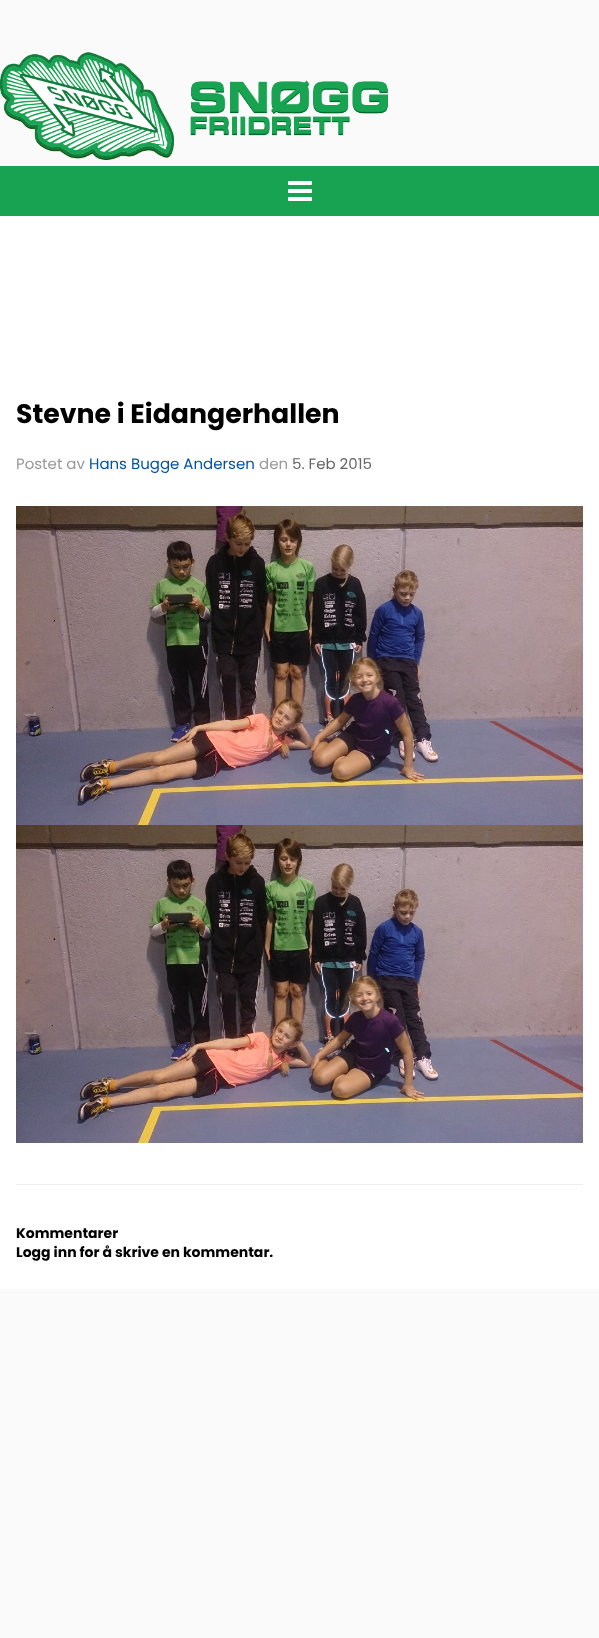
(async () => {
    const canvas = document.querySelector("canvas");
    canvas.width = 599;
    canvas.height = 1638;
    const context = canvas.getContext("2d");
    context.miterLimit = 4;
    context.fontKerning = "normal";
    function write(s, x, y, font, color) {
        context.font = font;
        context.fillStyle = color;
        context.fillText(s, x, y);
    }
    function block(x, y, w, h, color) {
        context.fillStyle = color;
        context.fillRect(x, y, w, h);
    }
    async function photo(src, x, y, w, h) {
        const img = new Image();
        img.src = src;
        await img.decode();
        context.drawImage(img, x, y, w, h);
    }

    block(0, 0, 599, 1638, "rgb(250, 250, 250)");
    await photo("media/1.png", 0, 52, 388, 108);
    block(0, 166, 599, 50, "rgb(23, 163, 81)");
    await photo("media/2.png", 288, 181, 24, 20);
    block(0, 216, 599, 1073, "rgb(255, 255, 255)");
    write("Stevne i Eidangerhallen", 16, 423, "bold 26.75px Poppins", "rgb(0, 0, 0)");
    write("Postet av", 16, 469, "15px Poppins", "rgb(153, 153, 153)");
    write("Hans Bugge Andersen", 89, 469, "15px Poppins", "rgb(0, 84, 166)");
    write("den", 259, 469, "15px Poppins", "rgb(153, 153, 153)");
    write("5. Feb 2015", 292, 469, "15px Poppins", "rgb(102, 102, 102)");
    await photo("media/3.png", 16, 506, 567, 319);
    await photo("media/4.png", 16, 825, 567, 318);
    block(16, 1184, 567, 1, "rgb(238, 238, 238)");
    write("Kommentarer", 16, 1238, "bold 14px Poppins", "rgb(0, 0, 0)");
    write("Logg inn for å skrive en kommentar.", 16, 1257, "bold 14px Poppins", "rgb(0, 0, 0)");
})();
